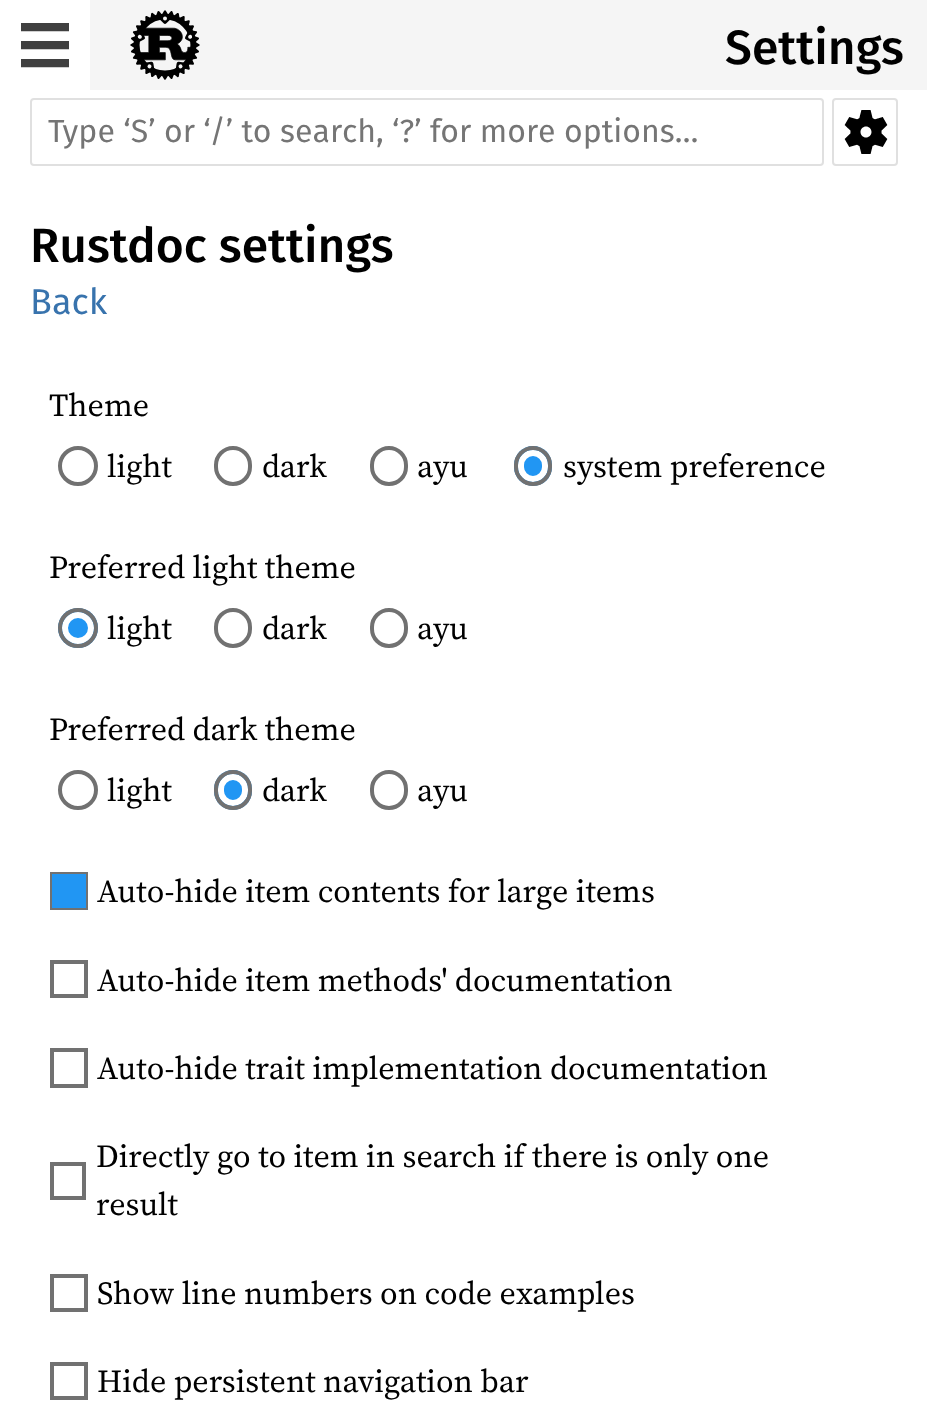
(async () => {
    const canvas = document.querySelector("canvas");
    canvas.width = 927;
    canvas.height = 1411;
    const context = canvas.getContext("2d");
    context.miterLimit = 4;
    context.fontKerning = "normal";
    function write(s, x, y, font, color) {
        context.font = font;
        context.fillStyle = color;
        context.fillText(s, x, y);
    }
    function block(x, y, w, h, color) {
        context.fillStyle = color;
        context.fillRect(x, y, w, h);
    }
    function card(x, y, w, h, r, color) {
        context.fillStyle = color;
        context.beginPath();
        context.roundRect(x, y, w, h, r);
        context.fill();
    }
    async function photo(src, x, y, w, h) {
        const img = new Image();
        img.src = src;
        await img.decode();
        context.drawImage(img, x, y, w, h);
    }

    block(0, 0, 927, 1411, "rgb(255, 255, 255)");
    block(90, 0, 837, 90, "rgb(245, 245, 245)");
    await photo("media/1.png", 21, 23, 48, 45);
    await photo("media/2.png", 130, 10, 70, 70);
    write("Settings", 725, 64, "500 48px Fira Sans", "rgb(0, 0, 0)");
    context.beginPath();
    context.roundRect(31, 99, 792, 66, 3);
    context.strokeStyle = "rgb(224, 224, 224)";
    context.lineWidth = 2;
    context.stroke();
    write("Type ‘S’ or ‘/’ to search, ‘?’ for more options…", 48, 142, "32px Fira Sans", "rgb(117, 117, 117)");
    context.beginPath();
    context.roundRect(833, 99, 64, 66, 3);
    context.stroke();
    await photo("media/3.png", 844, 110, 44, 44);
    write("Rustdoc settings", 30, 262, "500 48px Fira Sans", "rgb(0, 0, 0)");
    write("Back", 30, 314, "36px Fira Sans", "rgb(56, 115, 173)");
    write("Theme", 49, 416, "32px 'Source Serif 4'", "rgb(0, 0, 0)");
    context.beginPath();
    context.arc(78, 466, 18, 0, Math.PI * 2);
    context.strokeStyle = "rgb(113, 113, 113)";
    context.lineWidth = 4;
    context.stroke();
    write("light", 107, 477, "32px 'Source Serif 4'", "rgb(0, 0, 0)");
    context.beginPath();
    context.roundRect(216, 448, 34, 36, 17);
    context.stroke();
    write("dark", 262, 477, "32px 'Source Serif 4'", "rgb(0, 0, 0)");
    context.beginPath();
    context.roundRect(372, 448, 34, 36, 17);
    context.stroke();
    write("ayu", 417, 477, "32px 'Source Serif 4'", "rgb(0, 0, 0)");
    card(514, 446, 38, 40, 19, "rgb(33, 150, 243)");
    context.beginPath();
    context.roundRect(521, 453, 24, 26, 12);
    context.strokeStyle = "rgb(255, 255, 255)";
    context.lineWidth = 6;
    context.stroke();
    context.beginPath();
    context.roundRect(516, 448, 34, 36, 17);
    context.strokeStyle = "rgb(113, 113, 113)";
    context.lineWidth = 4;
    context.stroke();
    write("system preference", 563, 477, "32px 'Source Serif 4'", "rgb(0, 0, 0)");
    write("Preferred light theme", 49, 578, "32px 'Source Serif 4'", "rgb(0, 0, 0)");
    context.fillStyle = "rgb(33, 150, 243)";
    context.beginPath();
    context.arc(78, 628, 20, 0, Math.PI * 2);
    context.fill();
    context.beginPath();
    context.arc(78, 628, 13, 0, Math.PI * 2);
    context.strokeStyle = "rgb(255, 255, 255)";
    context.lineWidth = 6;
    context.stroke();
    context.beginPath();
    context.arc(78, 628, 18, 0, Math.PI * 2);
    context.strokeStyle = "rgb(113, 113, 113)";
    context.lineWidth = 4;
    context.stroke();
    write("light", 107, 639, "32px 'Source Serif 4'", "rgb(0, 0, 0)");
    context.beginPath();
    context.roundRect(216, 610, 34, 36, 17);
    context.stroke();
    write("dark", 262, 639, "32px 'Source Serif 4'", "rgb(0, 0, 0)");
    context.beginPath();
    context.roundRect(372, 610, 34, 36, 17);
    context.stroke();
    write("ayu", 417, 639, "32px 'Source Serif 4'", "rgb(0, 0, 0)");
    write("Preferred dark theme", 49, 740, "32px 'Source Serif 4'", "rgb(0, 0, 0)");
    context.beginPath();
    context.arc(78, 790, 18, 0, Math.PI * 2);
    context.stroke();
    write("light", 107, 801, "32px 'Source Serif 4'", "rgb(0, 0, 0)");
    card(214, 770, 38, 40, 19, "rgb(33, 150, 243)");
    context.beginPath();
    context.roundRect(221, 777, 24, 26, 12);
    context.strokeStyle = "rgb(255, 255, 255)";
    context.lineWidth = 6;
    context.stroke();
    context.beginPath();
    context.roundRect(216, 772, 34, 36, 17);
    context.strokeStyle = "rgb(113, 113, 113)";
    context.lineWidth = 4;
    context.stroke();
    write("dark", 262, 801, "32px 'Source Serif 4'", "rgb(0, 0, 0)");
    context.beginPath();
    context.roundRect(372, 772, 34, 36, 17);
    context.stroke();
    write("ayu", 417, 801, "32px 'Source Serif 4'", "rgb(0, 0, 0)");
    context.fillStyle = "rgb(33, 150, 243)";
    context.beginPath();
    context.rect(51, 873, 36, 36);
    context.fill();
    context.lineWidth = 2;
    context.stroke();
    write("Auto-hide item contents for large items", 97, 902, "32px 'Source Serif 4'", "rgb(0, 0, 0)");
    context.lineWidth = 4;
    context.strokeRect(52, 962, 34, 34);
    write("Auto-hide item methods' documentation", 97, 991, "32px 'Source Serif 4'", "rgb(0, 0, 0)");
    context.strokeRect(52, 1050, 34, 36);
    write("Auto-hide trait implementation documentation", 97, 1079, "32px 'Source Serif 4'", "rgb(0, 0, 0)");
    context.strokeRect(52, 1164, 32, 34);
    write("Directly go to item in search if there is only one", 96, 1167, "32px 'Source Serif 4'", "rgb(0, 0, 0)");
    write("result", 96, 1215, "32px 'Source Serif 4'", "rgb(0, 0, 0)");
    context.strokeRect(52, 1276, 34, 34);
    write("Show line numbers on code examples", 97, 1304, "32px 'Source Serif 4'", "rgb(0, 0, 0)");
    context.strokeRect(52, 1364, 34, 34);
    write("Hide persistent navigation bar", 97, 1392, "32px 'Source Serif 4'", "rgb(0, 0, 0)");
})();
